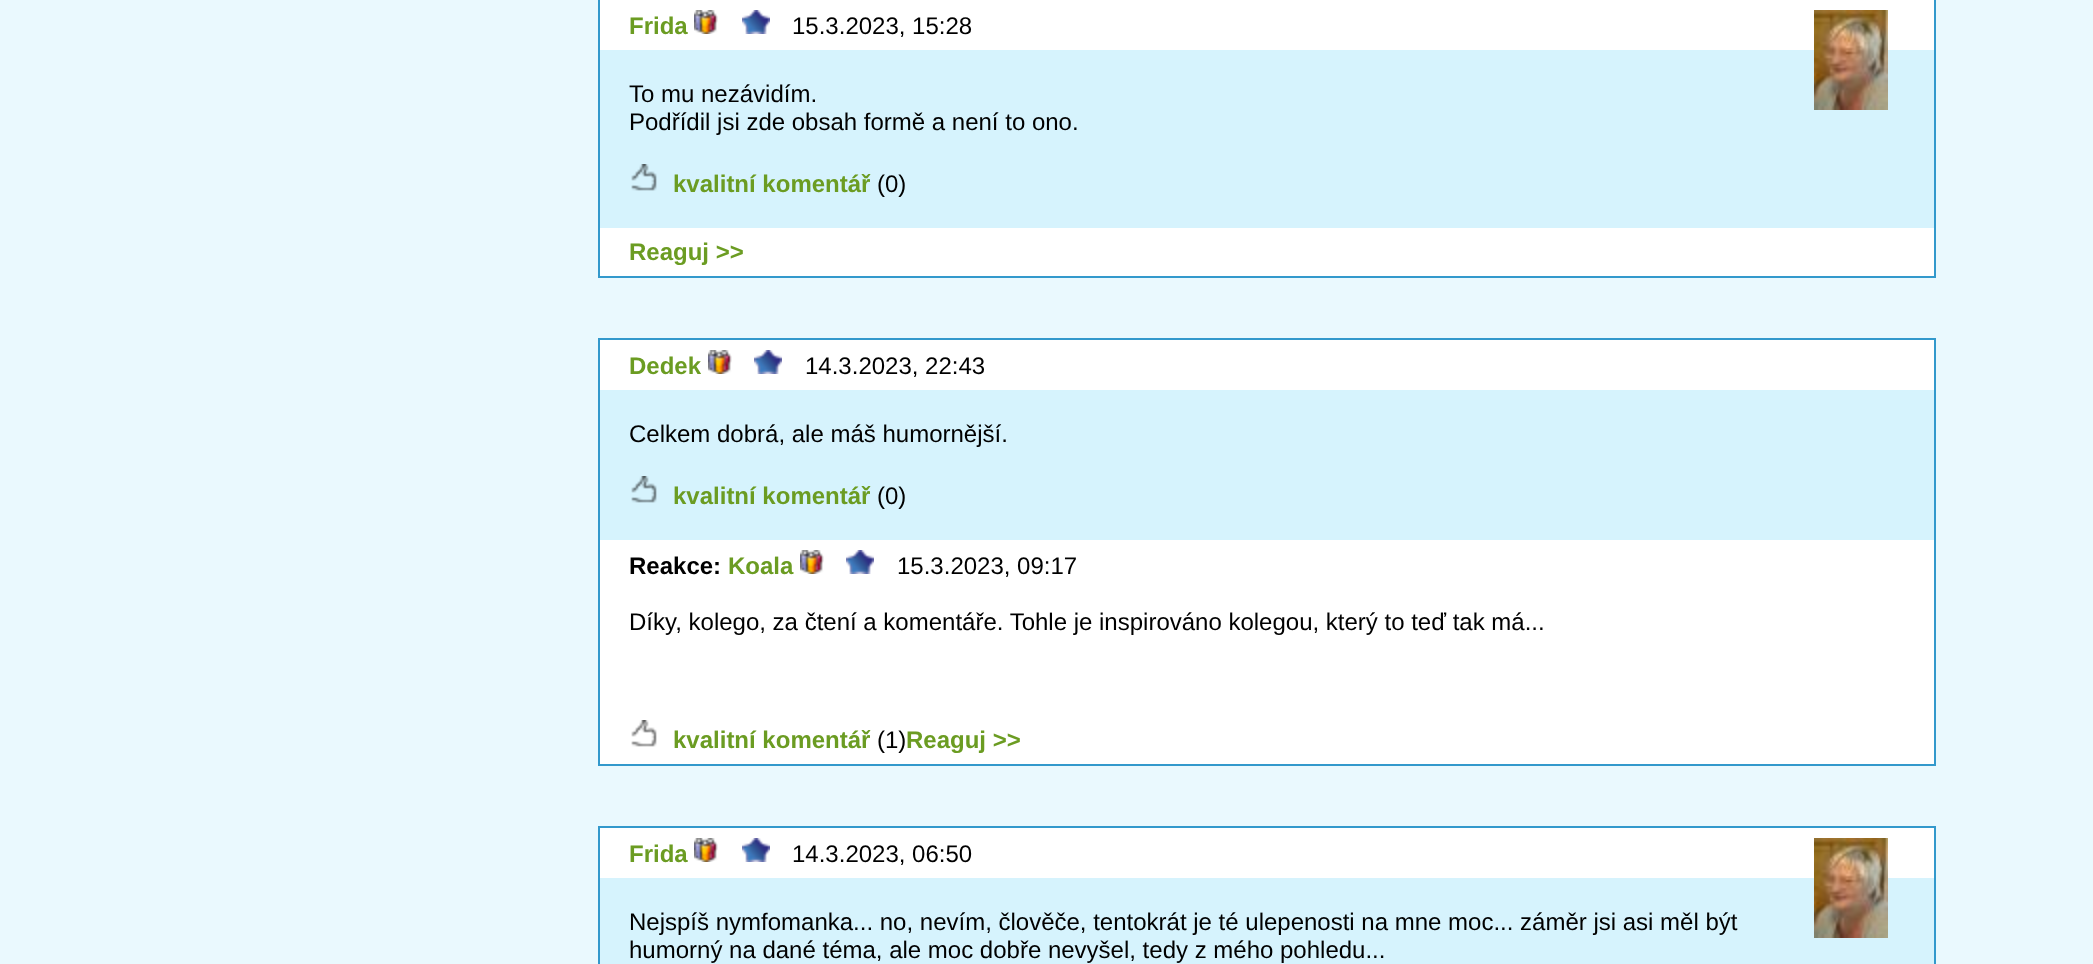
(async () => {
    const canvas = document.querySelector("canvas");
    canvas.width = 2093;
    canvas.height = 964;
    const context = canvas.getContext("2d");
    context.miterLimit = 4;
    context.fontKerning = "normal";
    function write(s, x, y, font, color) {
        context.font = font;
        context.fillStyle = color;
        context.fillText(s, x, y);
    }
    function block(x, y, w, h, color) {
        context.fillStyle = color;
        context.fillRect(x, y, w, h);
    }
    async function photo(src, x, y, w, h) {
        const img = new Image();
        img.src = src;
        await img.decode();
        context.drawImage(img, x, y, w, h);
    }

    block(0, 0, 2093, 964, "rgb(234, 249, 254)");
    block(600, 50, 1334, 178, "rgb(214, 243, 253)");
    context.strokeStyle = "rgb(51, 153, 204)";
    context.lineWidth = 2;
    context.strokeRect(599, -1, 1336, 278);
    block(600, 0, 1334, 50, "rgb(255, 255, 255)");
    write("Frida", 629, 34, "bold 24px Liberation Sans", "rgb(107, 156, 34)");
    await photo("media/1.png", 694, 10, 24, 24);
    await photo("media/2.png", 742, 10, 28, 24);
    write("15.3.2023, 15:28", 792, 34, "24px Liberation Sans", "rgb(0, 0, 0)");
    await photo("media/3.png", 1814, 10, 74, 100);
    write("To mu nezávidím.", 629, 102, "24px Liberation Sans", "rgb(0, 0, 0)");
    write("Podřídil jsi zde obsah formě a není to ono.", 629, 130, "24px Liberation Sans", "rgb(0, 0, 0)");
    await photo("media/4.png", 631, 164, 26, 27);
    write("kvalitní komentář", 673, 192, "bold 24px Liberation Sans", "rgb(107, 156, 34)");
    write("(0)", 877, 192, "24px Liberation Sans", "rgb(0, 0, 0)");
    block(600, 228, 1334, 48, "rgb(255, 255, 255)");
    write("Reaguj >>", 629, 260, "bold 24px Liberation Sans", "rgb(107, 156, 34)");
    block(600, 390, 1334, 150, "rgb(214, 243, 253)");
    context.strokeRect(599, 339, 1336, 426);
    block(600, 340, 1334, 50, "rgb(255, 255, 255)");
    write("Dedek", 629, 374, "bold 24px Liberation Sans", "rgb(107, 156, 34)");
    await photo("media/1.png", 708, 350, 24, 24);
    await photo("media/2.png", 754, 350, 28, 24);
    write("14.3.2023, 22:43", 805, 374, "24px Liberation Sans", "rgb(0, 0, 0)");
    write("Celkem dobrá, ale máš humornější.", 629, 442, "24px Liberation Sans", "rgb(0, 0, 0)");
    await photo("media/4.png", 631, 476, 26, 27);
    write("kvalitní komentář", 673, 504, "bold 24px Liberation Sans", "rgb(107, 156, 34)");
    write("(0)", 877, 504, "24px Liberation Sans", "rgb(0, 0, 0)");
    block(600, 540, 1334, 224, "rgb(255, 255, 255)");
    write("Reakce:", 629, 574, "bold 24px Liberation Sans", "rgb(0, 0, 0)");
    write("Koala", 728, 574, "bold 24px Liberation Sans", "rgb(107, 156, 34)");
    await photo("media/1.png", 800, 550, 24, 24);
    await photo("media/2.png", 846, 550, 28, 24);
    write("15.3.2023, 09:17", 897, 574, "24px Liberation Sans", "rgb(0, 0, 0)");
    write("Díky, kolego, za čtení a komentáře. Tohle je inspirováno kolegou, který to teď tak má...", 629, 630, "24px Liberation Sans", "rgb(0, 0, 0)");
    await photo("media/5.png", 631, 720, 26, 27);
    write("kvalitní komentář", 673, 748, "bold 24px Liberation Sans", "rgb(107, 156, 34)");
    write("(1)", 877, 748, "24px Liberation Sans", "rgb(0, 0, 0)");
    write("Reaguj >>", 906, 748, "bold 24px Liberation Sans", "rgb(107, 156, 34)");
    block(600, 878, 1334, 86, "rgb(214, 243, 253)");
    context.strokeRect(599, 827, 1336, 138);
    block(600, 828, 1334, 50, "rgb(255, 255, 255)");
    write("Frida", 629, 862, "bold 24px Liberation Sans", "rgb(107, 156, 34)");
    await photo("media/1.png", 694, 838, 24, 24);
    await photo("media/2.png", 742, 838, 28, 24);
    write("14.3.2023, 06:50", 792, 862, "24px Liberation Sans", "rgb(0, 0, 0)");
    await photo("media/3.png", 1814, 838, 74, 100);
    write("Nejspíš nymfomanka... no, nevím, člověče, tentokrát je té ulepenosti na mne moc... záměr jsi asi měl být", 629, 930, "24px Liberation Sans", "rgb(0, 0, 0)");
    write("humorný na dané téma, ale moc dobře nevyšel, tedy z mého pohledu...", 629, 958, "24px Liberation Sans", "rgb(0, 0, 0)");
})();
